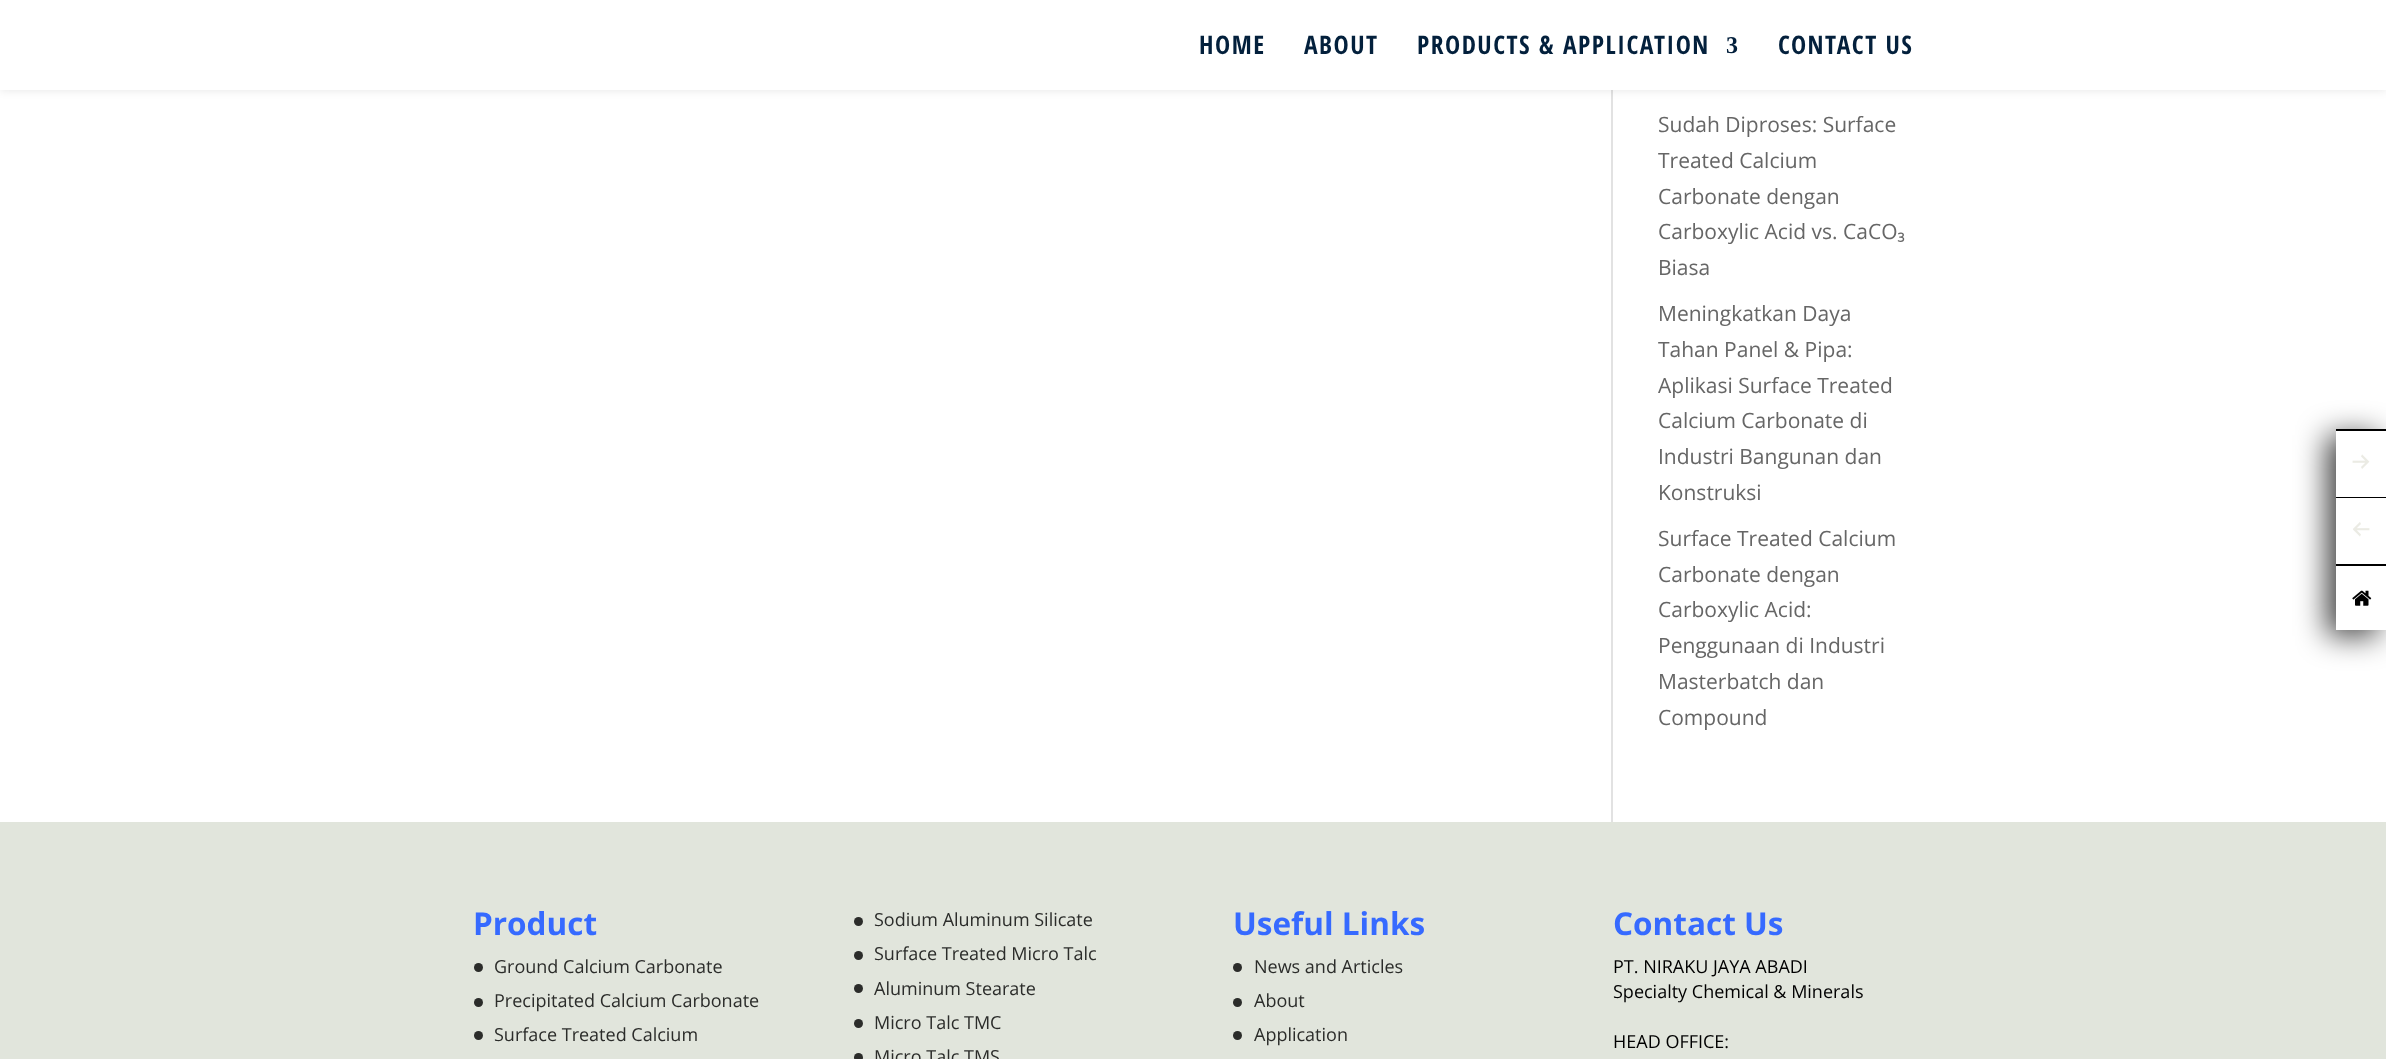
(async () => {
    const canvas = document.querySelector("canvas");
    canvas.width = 2386;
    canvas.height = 1059;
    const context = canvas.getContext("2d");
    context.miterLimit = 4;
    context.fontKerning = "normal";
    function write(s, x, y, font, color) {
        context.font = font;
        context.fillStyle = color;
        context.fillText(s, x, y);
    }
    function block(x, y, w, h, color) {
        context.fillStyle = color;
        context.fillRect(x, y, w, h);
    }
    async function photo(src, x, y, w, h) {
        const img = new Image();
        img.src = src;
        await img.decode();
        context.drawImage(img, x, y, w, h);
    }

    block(0, 0, 2386, 1059, "rgb(255, 255, 255)");
    block(1611, 90, 2, 732, "rgb(226, 226, 226)");
    context.fillStyle = "rgba(0, 0, 0, 0.1)";
    context.filter = "blur(5px)";
    context.beginPath();
    context.rect(0, 0, 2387, 90);
    context.fill();
    context.filter = "none";
    block(0, 0, 2386, 90, "rgb(255, 255, 255)");
    context.letterSpacing = "1.5px";
    write("HOME", 1199, 54, "bold 25.5px Open Sans Condensed", "rgb(3, 32, 60)");
    write("ABOUT", 1304, 54, "bold 25.5px Open Sans Condensed", "rgb(3, 32, 60)");
    write("PRODUCTS & APPLICATION", 1417, 54, "bold 25.5px Open Sans Condensed", "rgb(3, 32, 60)");
    write("3", 1726, 53, "bold 24px Liberation Serif", "rgb(3, 32, 60)");
    write("CONTACT US", 1778, 54, "bold 25.5px Open Sans Condensed", "rgb(3, 32, 60)");
    context.letterSpacing = "0px";
    write("Sudah Diproses: Surface", 1658, 132, "21px Open Sans", "rgb(102, 102, 102)");
    write("Treated Calcium", 1658, 168, "21px Open Sans", "rgb(102, 102, 102)");
    write("Carbonate dengan", 1658, 204, "21px Open Sans", "rgb(102, 102, 102)");
    write("Carboxylic Acid vs. CaCO₃", 1658, 239, "21px Open Sans", "rgb(102, 102, 102)");
    write("Biasa", 1658, 275, "21px Open Sans", "rgb(102, 102, 102)");
    write("Meningkatkan Daya", 1658, 321, "21px Open Sans", "rgb(102, 102, 102)");
    write("Tahan Panel & Pipa:", 1658, 357, "21px Open Sans", "rgb(102, 102, 102)");
    write("Aplikasi Surface Treated", 1658, 393, "21px Open Sans", "rgb(102, 102, 102)");
    write("Calcium Carbonate di", 1658, 428, "21px Open Sans", "rgb(102, 102, 102)");
    write("Industri Bangunan dan", 1658, 464, "21px Open Sans", "rgb(102, 102, 102)");
    write("Konstruksi", 1658, 500, "21px Open Sans", "rgb(102, 102, 102)");
    write("Surface Treated Calcium", 1658, 546, "21px Open Sans", "rgb(102, 102, 102)");
    write("Carbonate dengan", 1658, 582, "21px Open Sans", "rgb(102, 102, 102)");
    write("Carboxylic Acid:", 1658, 617, "21px Open Sans", "rgb(102, 102, 102)");
    write("Penggunaan di Industri", 1658, 653, "21px Open Sans", "rgb(102, 102, 102)");
    write("Masterbatch dan", 1658, 689, "21px Open Sans", "rgb(102, 102, 102)");
    write("Compound", 1658, 725, "21px Open Sans", "rgb(102, 102, 102)");
    block(0, 822, 2386, 237, "rgb(225, 229, 220)");
    write("Product", 473, 935, "bold 31.5px Open Sans", "rgb(54, 106, 255)");
    context.fillStyle = "rgb(43, 44, 42)";
    context.beginPath();
    context.arc(478.5, 967.5, 4.5, 0, Math.PI * 2);
    context.fill();
    write("Ground Calcium Carbonate", 494, 973, "18px Open Sans", "rgb(43, 44, 42)");
    context.beginPath();
    context.arc(478.5, 1002.5, 4.5, 0, Math.PI * 2);
    context.fill();
    write("Precipitated Calcium Carbonate", 494, 1007, "18px Open Sans", "rgb(43, 44, 42)");
    context.beginPath();
    context.arc(478.5, 1035.5, 4.5, 0, Math.PI * 2);
    context.fill();
    write("Surface Treated Calcium", 494, 1041, "18px Open Sans", "rgb(43, 44, 42)");
    context.beginPath();
    context.arc(858.5, 921.5, 4.5, 0, Math.PI * 2);
    context.fill();
    write("Sodium Aluminum Silicate", 874, 926, "18px Open Sans", "rgb(43, 44, 42)");
    context.beginPath();
    context.arc(858.5, 955.5, 4.5, 0, Math.PI * 2);
    context.fill();
    write("Surface Treated Micro Talc", 874, 960, "18px Open Sans", "rgb(43, 44, 42)");
    context.beginPath();
    context.arc(858.5, 988.5, 4.5, 0, Math.PI * 2);
    context.fill();
    write("Aluminum Stearate", 874, 995, "18px Open Sans", "rgb(43, 44, 42)");
    context.beginPath();
    context.arc(858.5, 1023.5, 4.5, 0, Math.PI * 2);
    context.fill();
    write("Micro Talc TMC", 874, 1029, "18px Open Sans", "rgb(43, 44, 42)");
    context.beginPath();
    context.arc(858.5, 1057.5, 4.5, 0, Math.PI * 2);
    context.fill();
    write("Micro Talc TMS", 874, 1063, "18px Open Sans", "rgb(43, 44, 42)");
    write("Useful Links", 1233, 935, "bold 31.5px Open Sans", "rgb(54, 106, 255)");
    context.fillStyle = "rgb(43, 44, 42)";
    context.beginPath();
    context.arc(1237.5, 967.5, 4.5, 0, Math.PI * 2);
    context.fill();
    write("News and Articles", 1254, 973, "18px Open Sans", "rgb(43, 44, 42)");
    context.beginPath();
    context.arc(1237.5, 1002.5, 4.5, 0, Math.PI * 2);
    context.fill();
    write("About", 1254, 1007, "18px Open Sans", "rgb(43, 44, 42)");
    context.beginPath();
    context.arc(1237.5, 1035.5, 4.5, 0, Math.PI * 2);
    context.fill();
    write("Application", 1254, 1041, "18px Open Sans", "rgb(43, 44, 42)");
    write("Contact Us", 1613, 935, "bold 31.5px Open Sans", "rgb(54, 106, 255)");
    write("PT. NIRAKU JAYA ABADI", 1613, 973, "18px Open Sans", "rgb(0, 0, 0)");
    write("Specialty Chemical & Minerals", 1613, 998, "18px Open Sans", "rgb(0, 0, 0)");
    write("HEAD OFFICE:", 1613, 1048, "18px Open Sans", "rgb(0, 0, 0)");
    context.save();
    context.beginPath();
    context.moveTo(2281, 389);
    context.lineTo(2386, 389);
    context.lineTo(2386, 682);
    context.lineTo(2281, 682);
    context.closePath();
    context.moveTo(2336, 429);
    context.lineTo(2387, 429);
    context.lineTo(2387, 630);
    context.lineTo(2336, 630);
    context.closePath();
    context.clip("evenodd");
    context.fillStyle = "rgba(0, 0, 0, 0.75)";
    context.filter = "blur(15px)";
    context.beginPath();
    context.rect(2327, 435, 51, 201);
    context.fill();
    context.filter = "none";
    context.restore();
    block(2336, 429, 50, 2, "rgb(0, 0, 0)");
    block(2336, 497, 50, 1, "rgb(0, 0, 0)");
    await photo("media/1.png", 2352, 454, 18, 15);
    block(2336, 564, 50, 2, "rgb(0, 0, 0)");
    await photo("media/2.png", 2353, 522, 17, 15);
    block(2336, 629, 50, 1, "rgb(255, 255, 255)");
    await photo("media/3.png", 2352, 590, 20, 16);
})();
